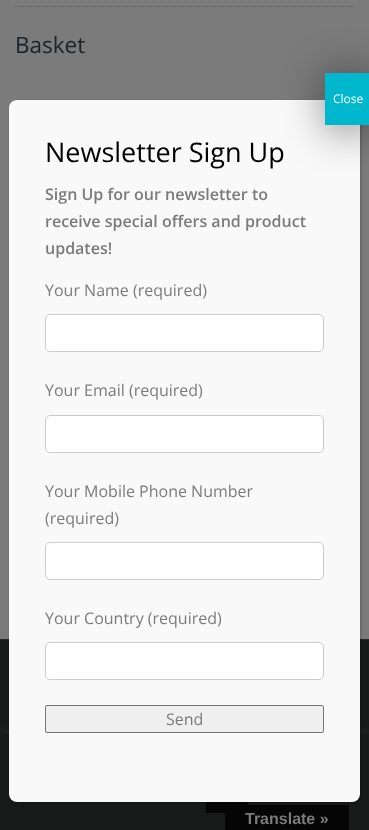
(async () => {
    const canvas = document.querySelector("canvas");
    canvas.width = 369;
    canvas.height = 830;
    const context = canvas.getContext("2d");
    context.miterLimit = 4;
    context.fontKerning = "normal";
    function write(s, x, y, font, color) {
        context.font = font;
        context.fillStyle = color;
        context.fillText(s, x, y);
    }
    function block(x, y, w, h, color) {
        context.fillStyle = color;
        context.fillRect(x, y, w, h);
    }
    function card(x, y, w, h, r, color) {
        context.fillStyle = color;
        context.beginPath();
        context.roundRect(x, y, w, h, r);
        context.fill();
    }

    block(0, 0, 369, 830, "rgb(123, 123, 123)");
    context.beginPath();
    context.moveTo(15, 6.5);
    context.lineTo(354, 6.5);
    context.strokeStyle = "rgb(91, 91, 91)";
    context.setLineDash([1, 1]);
    context.stroke();
    write("Basket", 15, 53, "22.5px Open Sans", "rgb(26, 34, 42)");
    block(0, 640, 369, 94, "rgb(24, 25, 25)");
    block(0, 639, 369, 1, "rgb(40, 40, 41)");
    context.fillStyle = "rgba(85, 84, 84, 0.3)";
    context.filter = "blur(5px)";
    context.beginPath();
    context.rect(0, 733, 369, 96);
    context.fill();
    context.filter = "none";
    block(0, 734, 369, 96, "rgb(24, 25, 25)");
    block(206, 802, 42, 11, "rgb(5, 5, 5)");
    block(225, 805, 124, 25, "rgb(5, 5, 5)");
    context.fillStyle = "rgba(2, 2, 2, 0.23)";
    context.filter = "blur(1.5px)";
    context.beginPath();
    context.roundRect(10, 101, 351, 702, 8);
    context.fill();
    context.filter = "none";
    card(9, 100, 351, 702, 8, "rgb(249, 249, 249)");
    context.fillStyle = "rgba(2, 2, 2, 0.53)";
    context.filter = "blur(22px)";
    context.beginPath();
    context.rect(327, 76, 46, 52);
    context.fill();
    context.filter = "none";
    block(325, 73, 44, 52, "rgb(0, 183, 205)");
    write("Close", 333, 103, "12px Open Sans", "rgb(255, 255, 255)");
    write("Newsletter Sign Up", 45, 162, "27px Open Sans", "rgb(0, 0, 0)");
    write("Sign Up for our newsletter to", 45, 200, "600 16px Open Sans", "rgb(123, 123, 123)");
    write("receive special offers and product", 45, 227, "600 16px Open Sans", "rgb(123, 123, 123)");
    write("updates!", 45, 254, "600 16px Open Sans", "rgb(123, 123, 123)");
    write("Your Name (required)", 45, 296, "16px Open Sans", "rgb(123, 123, 123)");
    context.fillStyle = "rgb(255, 255, 255)";
    context.beginPath();
    context.roundRect(45.5, 314.5, 278, 37, 4.5);
    context.fill();
    context.strokeStyle = "rgb(204, 204, 204)";
    context.setLineDash([]);
    context.stroke();
    write("Your Email (required)", 45, 396, "16px Open Sans", "rgb(123, 123, 123)");
    context.fillStyle = "rgb(255, 255, 255)";
    context.beginPath();
    context.roundRect(45.5, 415.5, 278, 37, 4.5);
    context.fill();
    context.stroke();
    write("Your Mobile Phone Number", 45, 497, "16px Open Sans", "rgb(123, 123, 123)");
    write("(required)", 45, 524, "16px Open Sans", "rgb(123, 123, 123)");
    context.fillStyle = "rgb(255, 255, 255)";
    context.beginPath();
    context.roundRect(45.5, 542.5, 278, 37, 4.5);
    context.fill();
    context.stroke();
    write("Your Country (required)", 45, 624, "16px Open Sans", "rgb(123, 123, 123)");
    context.fillStyle = "rgb(255, 255, 255)";
    context.beginPath();
    context.roundRect(45.5, 642.5, 278, 37, 4.5);
    context.fill();
    context.stroke();
    context.fillStyle = "rgb(239, 239, 239)";
    context.beginPath();
    context.roundRect(45.5, 705.5, 278, 27, 1.5);
    context.fill();
    context.strokeStyle = "rgb(118, 118, 118)";
    context.stroke();
    write("Send", 166, 725, "16px Open Sans", "rgb(123, 123, 123)");
    write("Translate »", 245, 824, "bold 16px Liberation Sans", "rgb(123, 123, 123)");
})();
